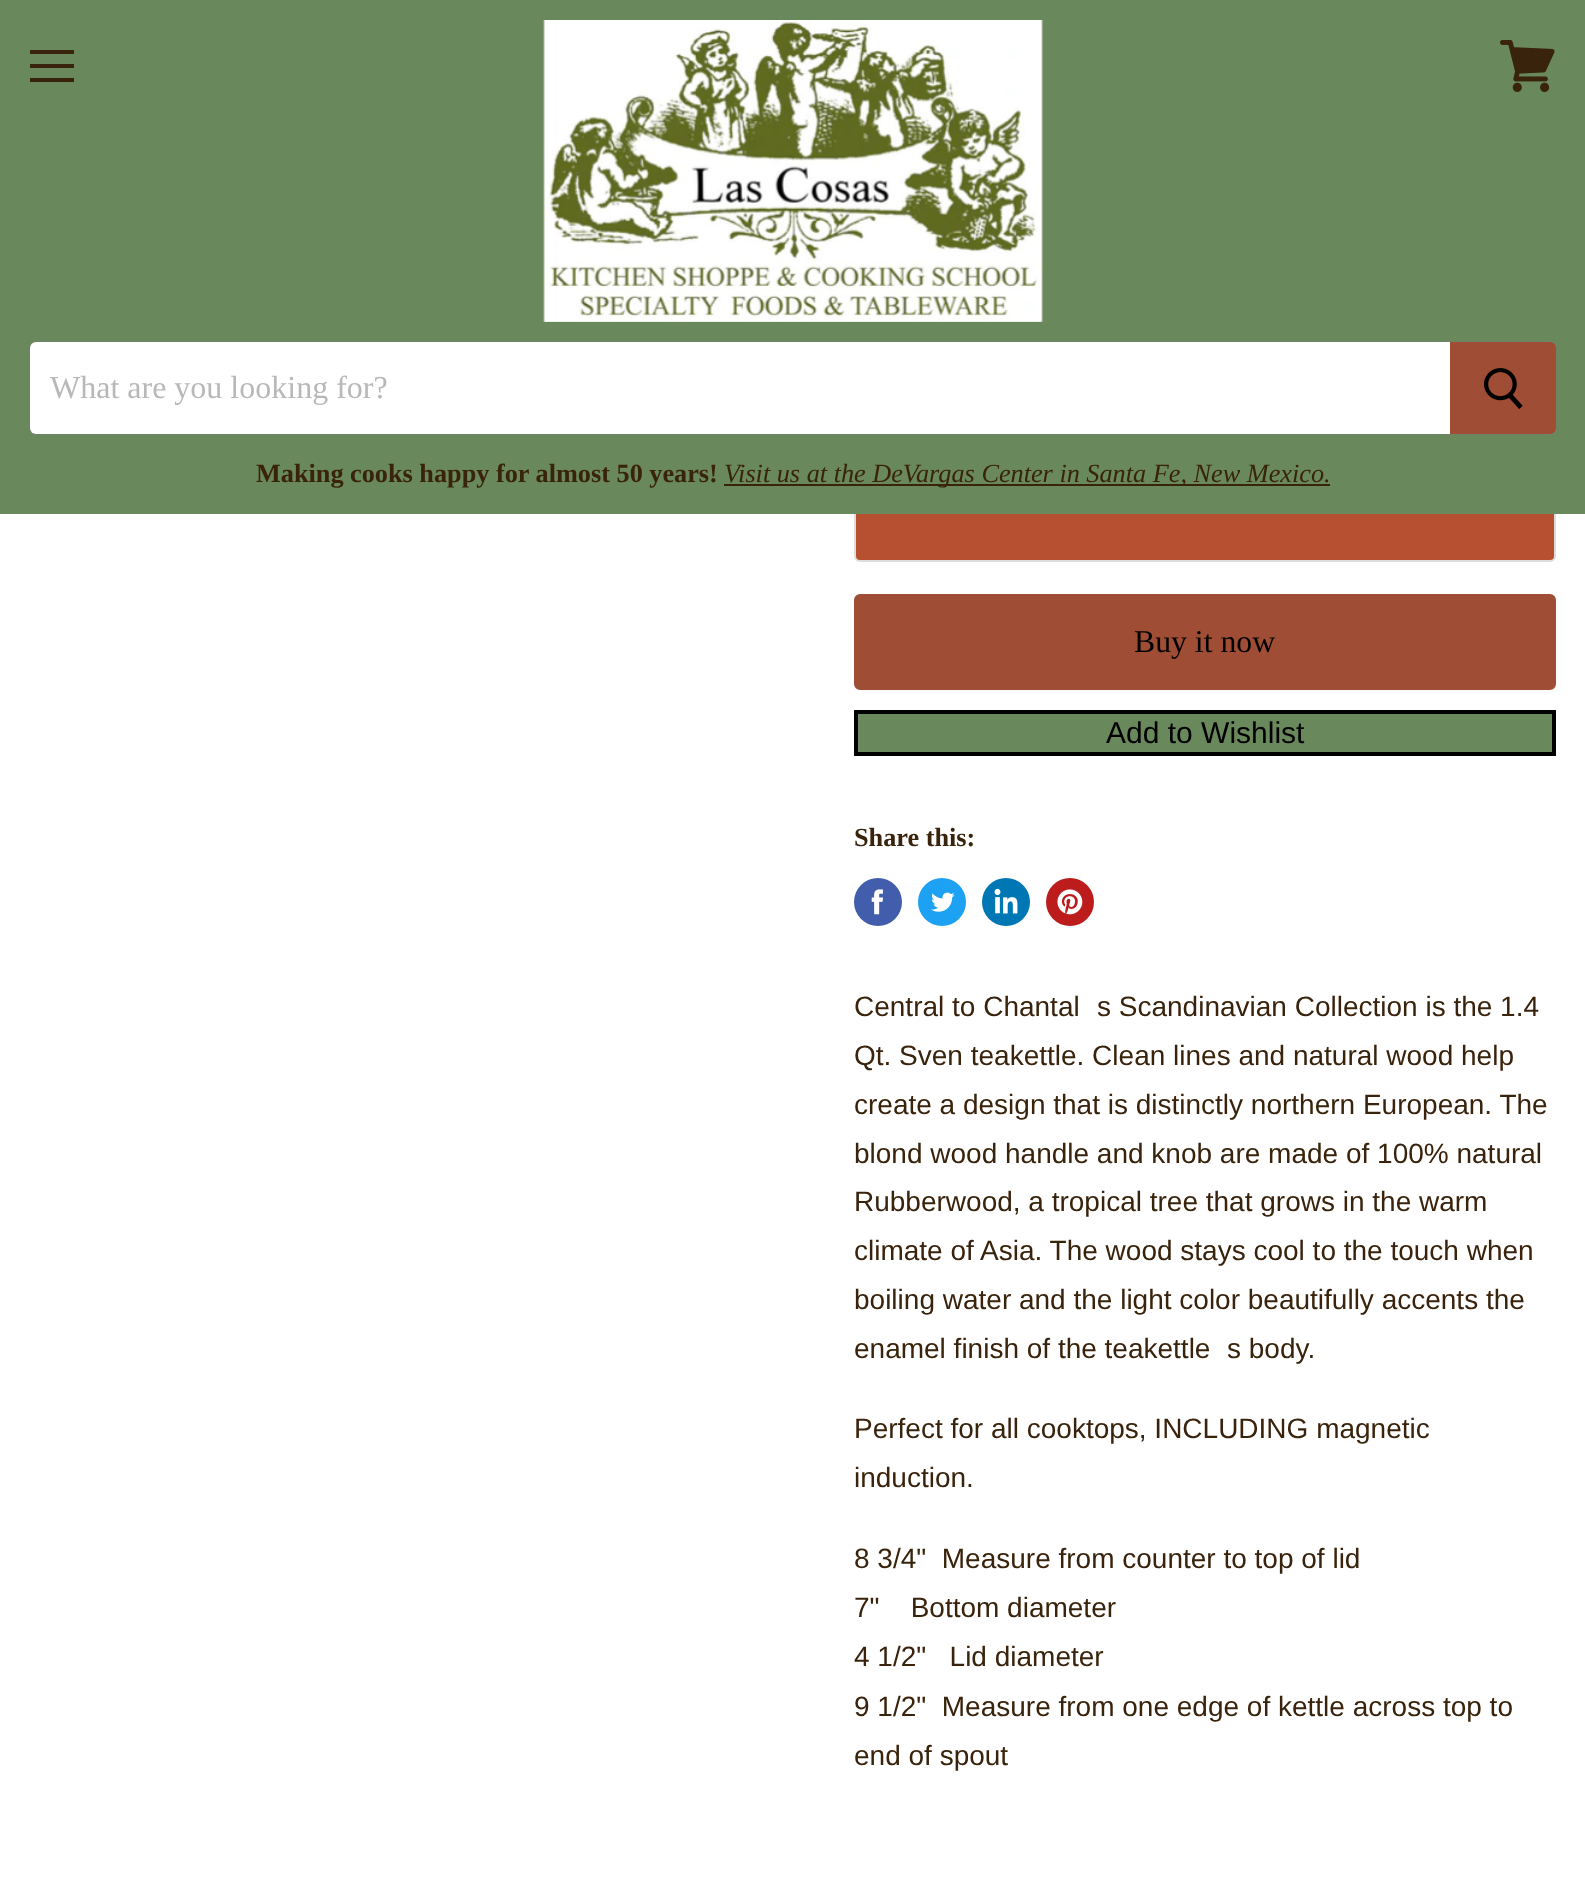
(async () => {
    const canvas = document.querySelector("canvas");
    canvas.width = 1585;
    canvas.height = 1887;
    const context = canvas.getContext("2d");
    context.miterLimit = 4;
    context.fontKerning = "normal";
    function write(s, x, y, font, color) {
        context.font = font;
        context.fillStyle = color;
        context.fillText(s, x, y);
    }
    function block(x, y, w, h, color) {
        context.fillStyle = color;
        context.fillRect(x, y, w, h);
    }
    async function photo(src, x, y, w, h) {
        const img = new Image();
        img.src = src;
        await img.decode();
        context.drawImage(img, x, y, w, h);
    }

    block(0, 0, 1585, 1887, "rgb(255, 255, 255)");
    context.fillStyle = "rgb(182, 80, 48)";
    context.beginPath();
    context.roundRect(855, 467, 700, 94, 5);
    context.fill();
    context.strokeStyle = "rgb(221, 221, 221)";
    context.lineWidth = 2;
    context.stroke();
    block(0, 0, 1585, 514, "rgb(105, 136, 91)");
    block(30, 50, 44, 4, "rgb(57, 35, 12)");
    block(30, 64, 44, 4, "rgb(57, 35, 12)");
    block(30, 78, 44, 4, "rgb(57, 35, 12)");
    await photo("media/1.png", 1500, 40, 55, 52);
    await photo("media/2.png", 543, 20, 500, 302);
    context.beginPath();
    context.roundRect(29, 341, 1528, 94, 7);
    context.strokeStyle = "rgb(109, 134, 98)";
    context.stroke();
    context.fillStyle = "rgb(255, 255, 255)";
    context.beginPath();
    context.roundRect(30, 342, 1420, 92, [6, 0, 0, 6]);
    context.fill();
    write("What are you looking for?", 50, 398, "32px Liberation Serif", "rgb(184, 184, 184)");
    context.fillStyle = "rgb(159, 77, 52)";
    context.beginPath();
    context.roundRect(1451, 343, 104, 90, [0, 5, 5, 0]);
    context.fill();
    context.strokeStyle = "rgb(159, 77, 52)";
    context.stroke();
    await photo("media/3.png", 1484, 368, 39, 41);
    write("Making cooks happy for almost 50 years!", 256, 482, "bold 26.25px Liberation Serif", "rgb(57, 35, 12)");
    block(724, 484, 606, 2, "rgb(57, 35, 12)");
    write("Visit us at the DeVargas Center in Santa Fe, New Mexico.", 724, 482, "italic 26.25px Liberation Serif", "rgb(57, 35, 12)");
    context.fillStyle = "rgb(159, 77, 52)";
    context.beginPath();
    context.roundRect(855, 595, 700, 94, 5);
    context.fill();
    context.stroke();
    write("Buy it now", 1134, 652, "31.75px Liberation Serif", "rgb(0, 0, 0)");
    context.fillStyle = "rgb(105, 136, 91)";
    context.beginPath();
    context.rect(856, 712, 698, 42);
    context.fill();
    context.strokeStyle = "rgb(0, 0, 0)";
    context.lineWidth = 4;
    context.stroke();
    write("Add to Wishlist", 1106, 743, "30px Liberation Sans", "rgb(0, 0, 0)");
    write("Share this:", 854, 846, "bold 26.25px Liberation Serif", "rgb(57, 35, 12)");
    context.fillStyle = "rgb(66, 93, 171)";
    context.beginPath();
    context.arc(878, 902, 24, 0, Math.PI * 2);
    context.fill();
    await photo("media/4.png", 871, 889, 12, 26);
    context.fillStyle = "rgb(29, 161, 242)";
    context.beginPath();
    context.arc(942, 902, 24, 0, Math.PI * 2);
    context.fill();
    await photo("media/5.png", 931, 892, 24, 20);
    context.fillStyle = "rgb(0, 119, 181)";
    context.beginPath();
    context.arc(1006, 902, 24, 0, Math.PI * 2);
    context.fill();
    await photo("media/6.png", 994, 888, 24, 26);
    context.fillStyle = "rgb(189, 28, 28)";
    context.beginPath();
    context.arc(1070, 902, 24, 0, Math.PI * 2);
    context.fill();
    await photo("media/7.png", 1057, 889, 26, 26);
    write("Central to Chantal", 854, 1016, "28px Liberation Sans", "rgb(57, 35, 12)");
    write("s Scandinavian Collection is the 1.4", 1097, 1016, "28px Liberation Sans", "rgb(57, 35, 12)");
    write("Qt. Sven teakettle. Clean lines and natural wood help", 854, 1065, "28px Liberation Sans", "rgb(57, 35, 12)");
    write("create a design that is distinctly northern European. The", 854, 1114, "28px Liberation Sans", "rgb(57, 35, 12)");
    write("blond wood handle and knob are made of 100% natural", 854, 1163, "28px Liberation Sans", "rgb(57, 35, 12)");
    write("Rubberwood, a tropical tree that grows in the warm", 854, 1211, "28px Liberation Sans", "rgb(57, 35, 12)");
    write("climate of Asia. The wood stays cool to the touch when", 854, 1260, "28px Liberation Sans", "rgb(57, 35, 12)");
    write("boiling water and the light color beautifully accents the", 854, 1309, "28px Liberation Sans", "rgb(57, 35, 12)");
    write("enamel finish of the teakettle", 854, 1358, "28px Liberation Sans", "rgb(57, 35, 12)");
    write("s body.", 1227, 1358, "28px Liberation Sans", "rgb(57, 35, 12)");
    write("Perfect for all cooktops, INCLUDING magnetic", 854, 1438, "28px Liberation Sans", "rgb(57, 35, 12)");
    write("induction.", 854, 1487, "28px Liberation Sans", "rgb(57, 35, 12)");
    write("8 3/4\"  Measure from counter to top of lid", 854, 1568, "28px Liberation Sans", "rgb(57, 35, 12)");
    write("7\"    Bottom diameter", 854, 1617, "28px Liberation Sans", "rgb(57, 35, 12)");
    write("4 1/2\"   Lid diameter", 854, 1666, "28px Liberation Sans", "rgb(57, 35, 12)");
    write("9 1/2\"  Measure from one edge of kettle across top to", 854, 1716, "28px Liberation Sans", "rgb(57, 35, 12)");
    write("end of spout", 854, 1765, "28px Liberation Sans", "rgb(57, 35, 12)");
})();
